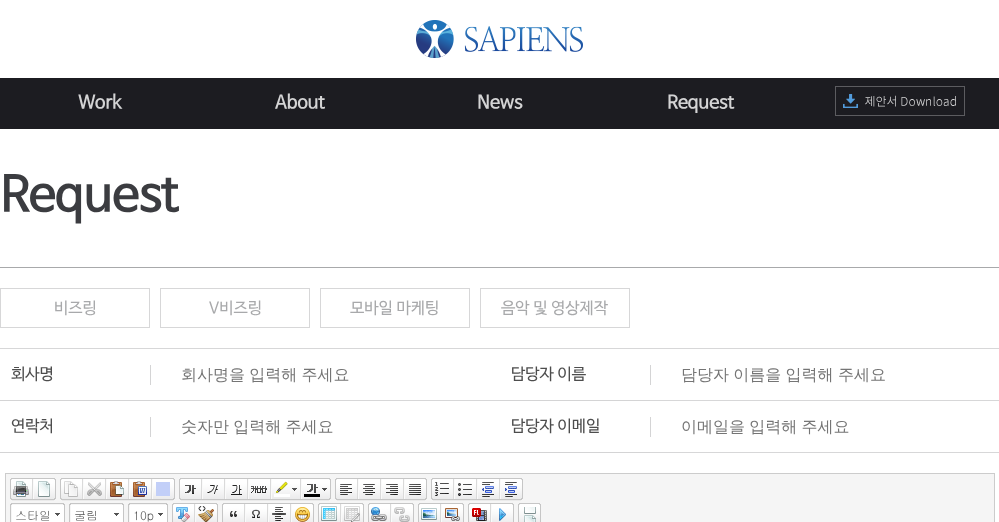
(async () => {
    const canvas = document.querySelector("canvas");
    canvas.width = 999;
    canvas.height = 522;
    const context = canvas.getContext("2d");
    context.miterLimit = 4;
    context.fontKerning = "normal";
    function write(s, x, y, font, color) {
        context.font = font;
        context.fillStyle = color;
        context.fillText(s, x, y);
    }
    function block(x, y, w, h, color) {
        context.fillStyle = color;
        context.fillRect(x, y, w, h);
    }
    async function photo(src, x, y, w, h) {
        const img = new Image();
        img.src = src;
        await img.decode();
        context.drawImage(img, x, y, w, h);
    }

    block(0, 0, 999, 522, "rgb(255, 255, 255)");
    await photo("media/1.png", 416, 20, 167, 38);
    block(0, 78, 999, 51, "rgb(28, 28, 33)");
    write("Work", 78, 108, "bold 18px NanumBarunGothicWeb", "rgb(212, 212, 213)");
    write("About", 275, 108, "bold 18px NanumBarunGothicWeb", "rgb(212, 212, 213)");
    write("News", 477, 108, "bold 18px NanumBarunGothicWeb", "rgb(212, 212, 213)");
    write("Request", 667, 108, "bold 18px NanumBarunGothicWeb", "rgb(212, 212, 213)");
    await photo("media/2.png", 835, 86, 130, 30);
    block(0, 267, 999, 1, "rgb(168, 169, 171)");
    write("Request", 0, 210, "bold 48px NanumBarunGothicWeb", "rgb(59, 60, 64)");
    context.strokeStyle = "rgb(215, 215, 216)";
    context.strokeRect(0.5, 288.5, 149, 39);
    write("비즈링", 54, 313, "16px NanumBarunGothicWeb", "rgb(168, 169, 171)");
    context.strokeRect(160.5, 288.5, 149, 39);
    write("V비즈링", 209, 313, "16px NanumBarunGothicWeb", "rgb(168, 169, 171)");
    context.strokeRect(320.5, 288.5, 149, 39);
    write("모바일 마케팅", 350, 313, "16px NanumBarunGothicWeb", "rgb(168, 169, 171)");
    context.strokeRect(480.5, 288.5, 149, 39);
    write("음악 및 영상제작", 501, 313, "16px NanumBarunGothicWeb", "rgb(168, 169, 171)");
    block(0, 348, 999, 1, "rgb(215, 215, 216)");
    block(0, 400, 150, 1, "rgb(212, 212, 213)");
    write("회사명", 11, 379, "16px NanumBarunGothicWeb", "rgb(77, 77, 77)");
    block(150, 400, 350, 1, "rgb(215, 215, 216)");
    block(150, 365, 1, 20, "rgb(212, 212, 213)");
    context.wordSpacing = "-0.5px";
    write("회사명을 입력해 주세요", 181, 380, "500 16px WenQuanYi Zen Hei", "rgb(117, 117, 117)");
    block(500, 400, 150, 1, "rgb(212, 212, 213)");
    context.wordSpacing = "0px";
    write("담당자 이름", 511, 379, "16px NanumBarunGothicWeb", "rgb(77, 77, 77)");
    block(650, 400, 349, 1, "rgb(215, 215, 216)");
    block(650, 365, 1, 20, "rgb(212, 212, 213)");
    context.wordSpacing = "-0.5px";
    write("담당자 이름을 입력해 주세요", 681, 380, "500 16px WenQuanYi Zen Hei", "rgb(117, 117, 117)");
    block(0, 452, 150, 1, "rgb(212, 212, 213)");
    context.wordSpacing = "0px";
    write("연락처", 11, 431, "16px NanumBarunGothicWeb", "rgb(77, 77, 77)");
    block(150, 452, 350, 1, "rgb(215, 215, 216)");
    block(150, 417, 1, 20, "rgb(212, 212, 213)");
    context.wordSpacing = "-0.5px";
    write("숫자만 입력해 주세요", 181, 432, "500 16px WenQuanYi Zen Hei", "rgb(117, 117, 117)");
    block(500, 452, 150, 1, "rgb(212, 212, 213)");
    context.wordSpacing = "0px";
    write("담당자 이메일", 511, 431, "16px NanumBarunGothicWeb", "rgb(77, 77, 77)");
    block(650, 452, 349, 1, "rgb(215, 215, 216)");
    block(650, 417, 1, 20, "rgb(212, 212, 213)");
    context.wordSpacing = "-0.5px";
    write("이메일을 입력해 주세요", 681, 432, "500 16px WenQuanYi Zen Hei", "rgb(117, 117, 117)");
    block(5, 473, 990, 1, "rgb(204, 204, 204)");
    block(6, 474, 988, 48, "rgb(245, 245, 245)");
    block(994, 474, 1, 48, "rgb(204, 204, 204)");
    block(5, 474, 1, 48, "rgb(204, 204, 204)");
    await photo("media/3.png", 10, 478, 23, 23);
    await photo("media/4.png", 13, 481, 16, 16);
    await photo("media/5.png", 33, 478, 23, 23);
    await photo("media/6.png", 38, 481, 12, 16);
    await photo("media/3.png", 60, 478, 23, 23);
    await photo("media/7.png", 64, 481, 14, 16);
    await photo("media/8.png", 83, 478, 23, 23);
    await photo("media/9.png", 87, 482, 15, 14);
    await photo("media/8.png", 106, 478, 23, 23);
    await photo("media/10.png", 110, 481, 14, 16);
    await photo("media/8.png", 129, 478, 23, 23);
    await photo("media/11.png", 133, 481, 14, 16);
    await photo("media/5.png", 152, 478, 23, 23);
    block(156, 482, 14, 14, "rgb(194, 207, 248)");
    await photo("media/3.png", 179, 478, 23, 23);
    await photo("media/12.png", 185, 485, 11, 9);
    await photo("media/8.png", 202, 478, 23, 23);
    await photo("media/13.png", 207, 485, 11, 9);
    await photo("media/8.png", 225, 478, 23, 23);
    await photo("media/14.png", 231, 485, 11, 10);
    await photo("media/8.png", 248, 478, 23, 23);
    await photo("media/15.png", 251, 486, 16, 7);
    await photo("media/16.png", 271, 478, 30, 23);
    await photo("media/17.png", 274, 481, 23, 16);
    await photo("media/18.png", 301, 478, 30, 23);
    await photo("media/19.png", 307, 484, 20, 9);
    block(304, 494, 16, 3, "rgb(0, 0, 0)");
    await photo("media/3.png", 335, 478, 23, 23);
    await photo("media/20.png", 340, 484, 12, 11);
    await photo("media/8.png", 358, 478, 23, 23);
    await photo("media/21.png", 363, 484, 12, 11);
    await photo("media/8.png", 381, 478, 23, 23);
    await photo("media/22.png", 386, 484, 12, 11);
    await photo("media/5.png", 404, 478, 23, 23);
    await photo("media/23.png", 409, 484, 12, 11);
    await photo("media/3.png", 431, 478, 23, 23);
    await photo("media/24.png", 435, 482, 14, 14);
    await photo("media/8.png", 454, 478, 23, 23);
    await photo("media/25.png", 458, 483, 14, 13);
    await photo("media/8.png", 477, 478, 23, 23);
    await photo("media/26.png", 482, 482, 12, 15);
    await photo("media/5.png", 500, 478, 23, 23);
    await photo("media/27.png", 505, 482, 12, 15);
    await photo("media/28.png", 10, 503, 55, 19);
    context.wordSpacing = "0px";
    write("스타일", 15, 520, "12px Gulim", "rgb(85, 85, 85)");
    await photo("media/28.png", 69, 503, 55, 19);
    write("굴림", 74, 520, "12px Gulim", "rgb(85, 85, 85)");
    await photo("media/29.png", 128, 503, 40, 19);
    write("10p", 133, 520, "12px Gulim", "rgb(85, 85, 85)");
    await photo("media/30.png", 172, 503, 23, 19);
    await photo("media/31.png", 176, 507, 14, 15);
    await photo("media/32.png", 195, 503, 23, 19);
    await photo("media/33.png", 198, 506, 16, 16);
    await photo("media/30.png", 222, 503, 23, 19);
    await photo("media/34.png", 230, 511, 7, 6);
    await photo("media/35.png", 245, 503, 23, 19);
    await photo("media/36.png", 252, 509, 8, 9);
    await photo("media/35.png", 268, 503, 23, 19);
    await photo("media/37.png", 272, 507, 14, 14);
    await photo("media/32.png", 291, 503, 23, 19);
    await photo("media/38.png", 295, 507, 15, 15);
    await photo("media/30.png", 318, 503, 23, 19);
    await photo("media/39.png", 321, 506, 16, 15);
    await photo("media/32.png", 341, 503, 23, 19);
    await photo("media/40.png", 344, 506, 16, 16);
    await photo("media/30.png", 368, 503, 23, 19);
    await photo("media/41.png", 371, 507, 16, 14);
    await photo("media/32.png", 391, 503, 23, 19);
    await photo("media/42.png", 394, 507, 16, 15);
    await photo("media/30.png", 418, 503, 23, 19);
    await photo("media/43.png", 421, 508, 16, 12);
    await photo("media/32.png", 441, 503, 23, 19);
    await photo("media/44.png", 445, 508, 15, 13);
    await photo("media/30.png", 468, 503, 23, 19);
    await photo("media/45.png", 472, 508, 15, 13);
    await photo("media/32.png", 491, 503, 23, 19);
    await photo("media/46.png", 499, 508, 7, 13);
    await photo("media/47.png", 518, 503, 23, 19);
    await photo("media/48.png", 524, 507, 12, 15);
})();
